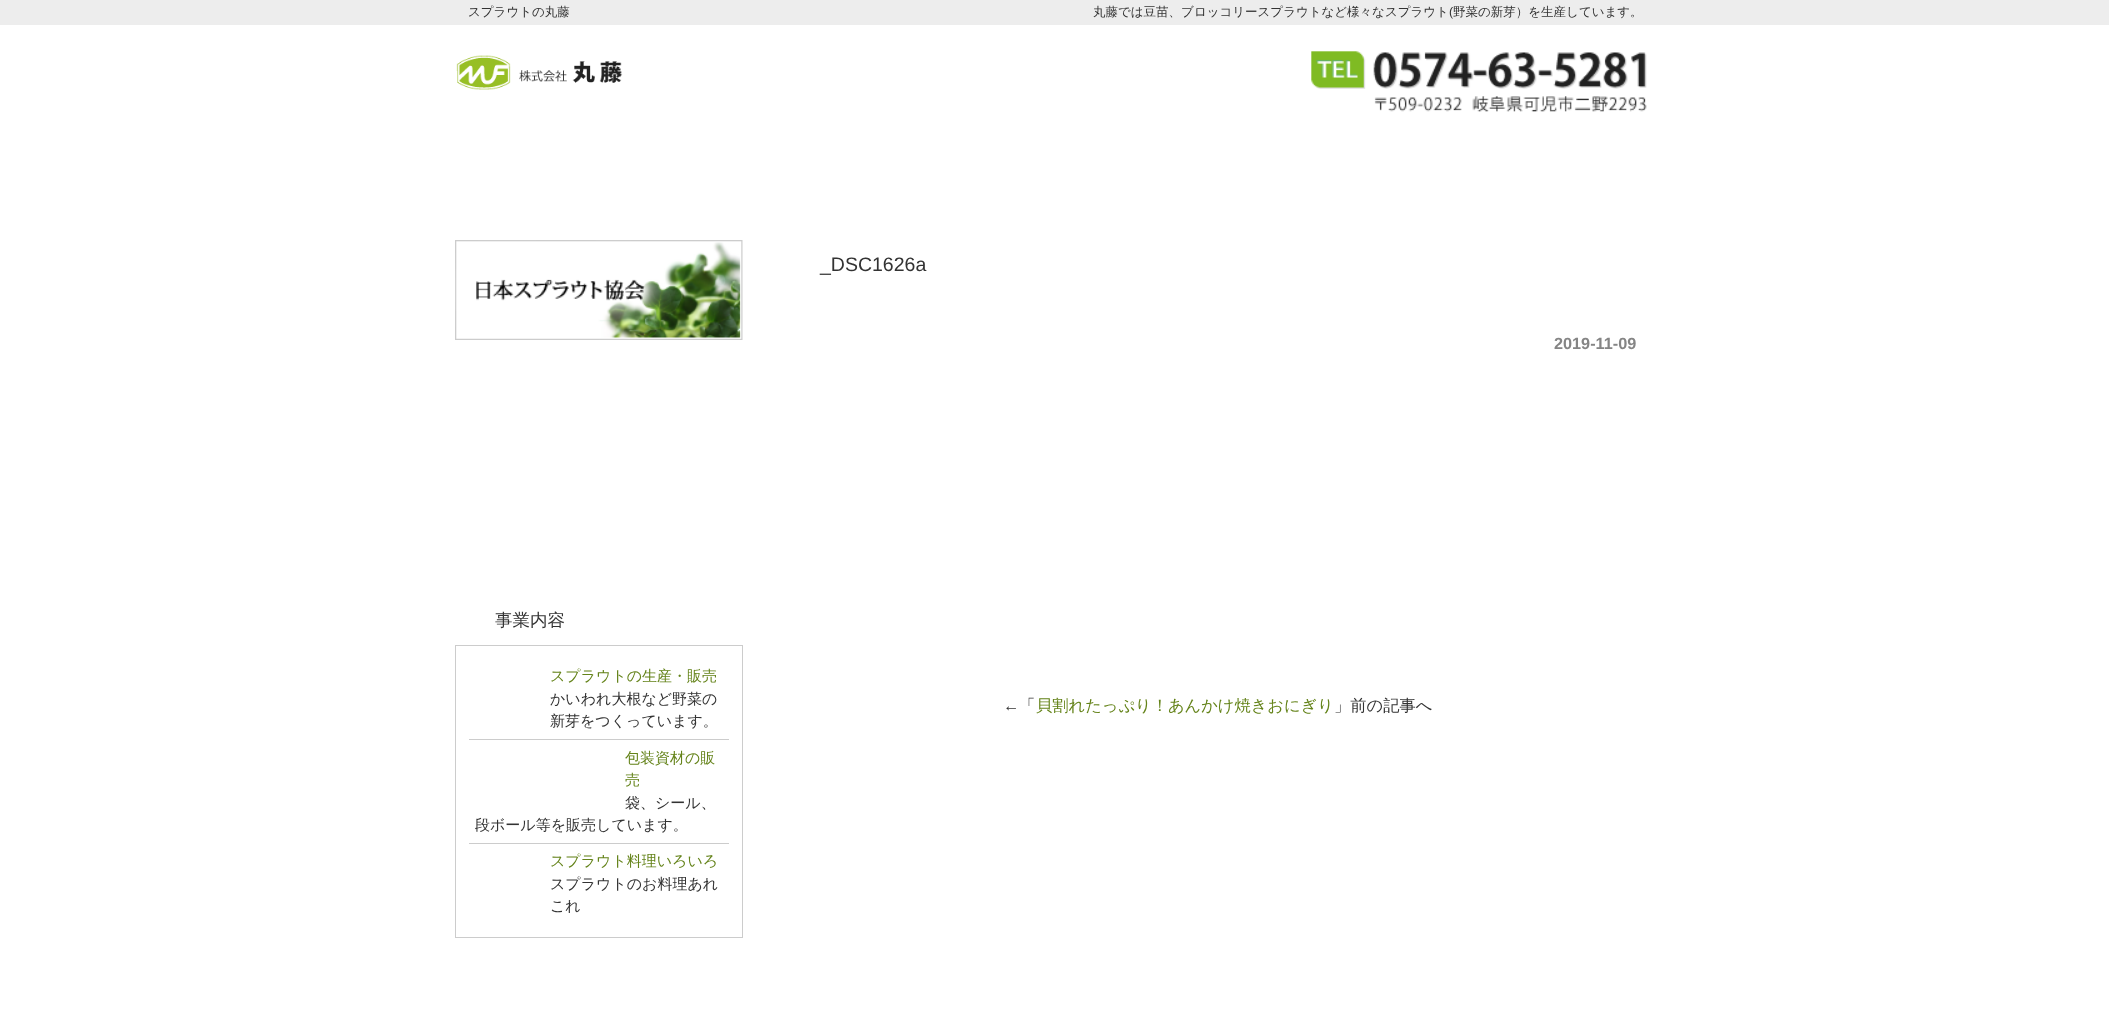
(async () => {
    const canvas = document.querySelector("canvas");
    canvas.width = 2109;
    canvas.height = 1014;
    const context = canvas.getContext("2d");
    context.miterLimit = 4;
    context.fontKerning = "normal";
    function write(s, x, y, font, color) {
        context.font = font;
        context.fillStyle = color;
        context.fillText(s, x, y);
    }
    function block(x, y, w, h, color) {
        context.fillStyle = color;
        context.fillRect(x, y, w, h);
    }
    async function photo(src, x, y, w, h) {
        const img = new Image();
        img.src = src;
        await img.decode();
        context.drawImage(img, x, y, w, h);
    }

    block(0, 0, 2109, 1014, "rgb(255, 255, 255)");
    block(0, 0, 2109, 25, "rgb(237, 237, 237)");
    write("スプラウトの丸藤", 468, 16, "500 12.5px WenQuanYi Zen Hei", "rgb(51, 51, 51)");
    write("丸藤では豆苗、ブロッコリースプラウトなど様々なスプラウト", 1093, 16, "500 12.5px WenQuanYi Zen Hei", "rgb(51, 51, 51)");
    write("(", 1449, 16, "12.5px Liberation Sans", "rgb(51, 51, 51)");
    write("野菜の新芽）を生産しています。", 1453, 16, "500 12.5px WenQuanYi Zen Hei", "rgb(51, 51, 51)");
    await photo("media/1.png", 456, 55, 167, 35);
    await photo("media/2.png", 1311, 51, 336, 61);
    write("_DSC1626a", 820, 271, "19.5px Liberation Sans", "rgb(51, 51, 51)");
    write("2019-11-09", 1554, 349, "bold 16.25px Liberation Sans", "rgb(133, 133, 133)");
    write("←", 1003, 711, "16.25px Liberation Sans", "rgb(51, 51, 51)");
    write("「", 1019, 711, "500 16.25px WenQuanYi Zen Hei", "rgb(51, 51, 51)");
    write("貝割れたっぷり！あんかけ焼きおにぎり", 1036, 711, "500 16.25px WenQuanYi Zen Hei", "rgb(100, 131, 25)");
    write("」前の記事へ", 1334, 711, "500 16.25px WenQuanYi Zen Hei", "rgb(51, 51, 51)");
    await photo("media/3.png", 455, 240, 288, 100);
    write("事業内容", 495, 626, "500 17.5px WenQuanYi Zen Hei", "rgb(51, 51, 51)");
    context.strokeStyle = "rgb(204, 204, 204)";
    context.strokeRect(455.5, 645.5, 287, 292);
    block(469, 739, 260, 1, "rgb(204, 204, 204)");
    write("スプラウトの生産・販売", 550, 681, "500 15px WenQuanYi Zen Hei", "rgb(100, 131, 25)");
    write("かいわれ大根など野菜の", 550, 704, "500 15px WenQuanYi Zen Hei", "rgb(51, 51, 51)");
    write("新芽をつくっています。", 550, 726, "500 15px WenQuanYi Zen Hei", "rgb(51, 51, 51)");
    block(469, 843, 260, 1, "rgb(204, 204, 204)");
    write("包装資材の販", 625, 763, "500 15px WenQuanYi Zen Hei", "rgb(100, 131, 25)");
    write("売", 625, 785, "500 15px WenQuanYi Zen Hei", "rgb(100, 131, 25)");
    write("袋、シール、", 625, 808, "500 15px WenQuanYi Zen Hei", "rgb(51, 51, 51)");
    write("段ボール等を販売しています。", 475, 830, "500 15px WenQuanYi Zen Hei", "rgb(51, 51, 51)");
    write("スプラウト料理いろいろ", 550, 866, "500 15px WenQuanYi Zen Hei", "rgb(100, 131, 25)");
    write("スプラウトのお料理あれ", 550, 889, "500 15px WenQuanYi Zen Hei", "rgb(51, 51, 51)");
    write("これ", 550, 911, "500 15px WenQuanYi Zen Hei", "rgb(51, 51, 51)");
})();
